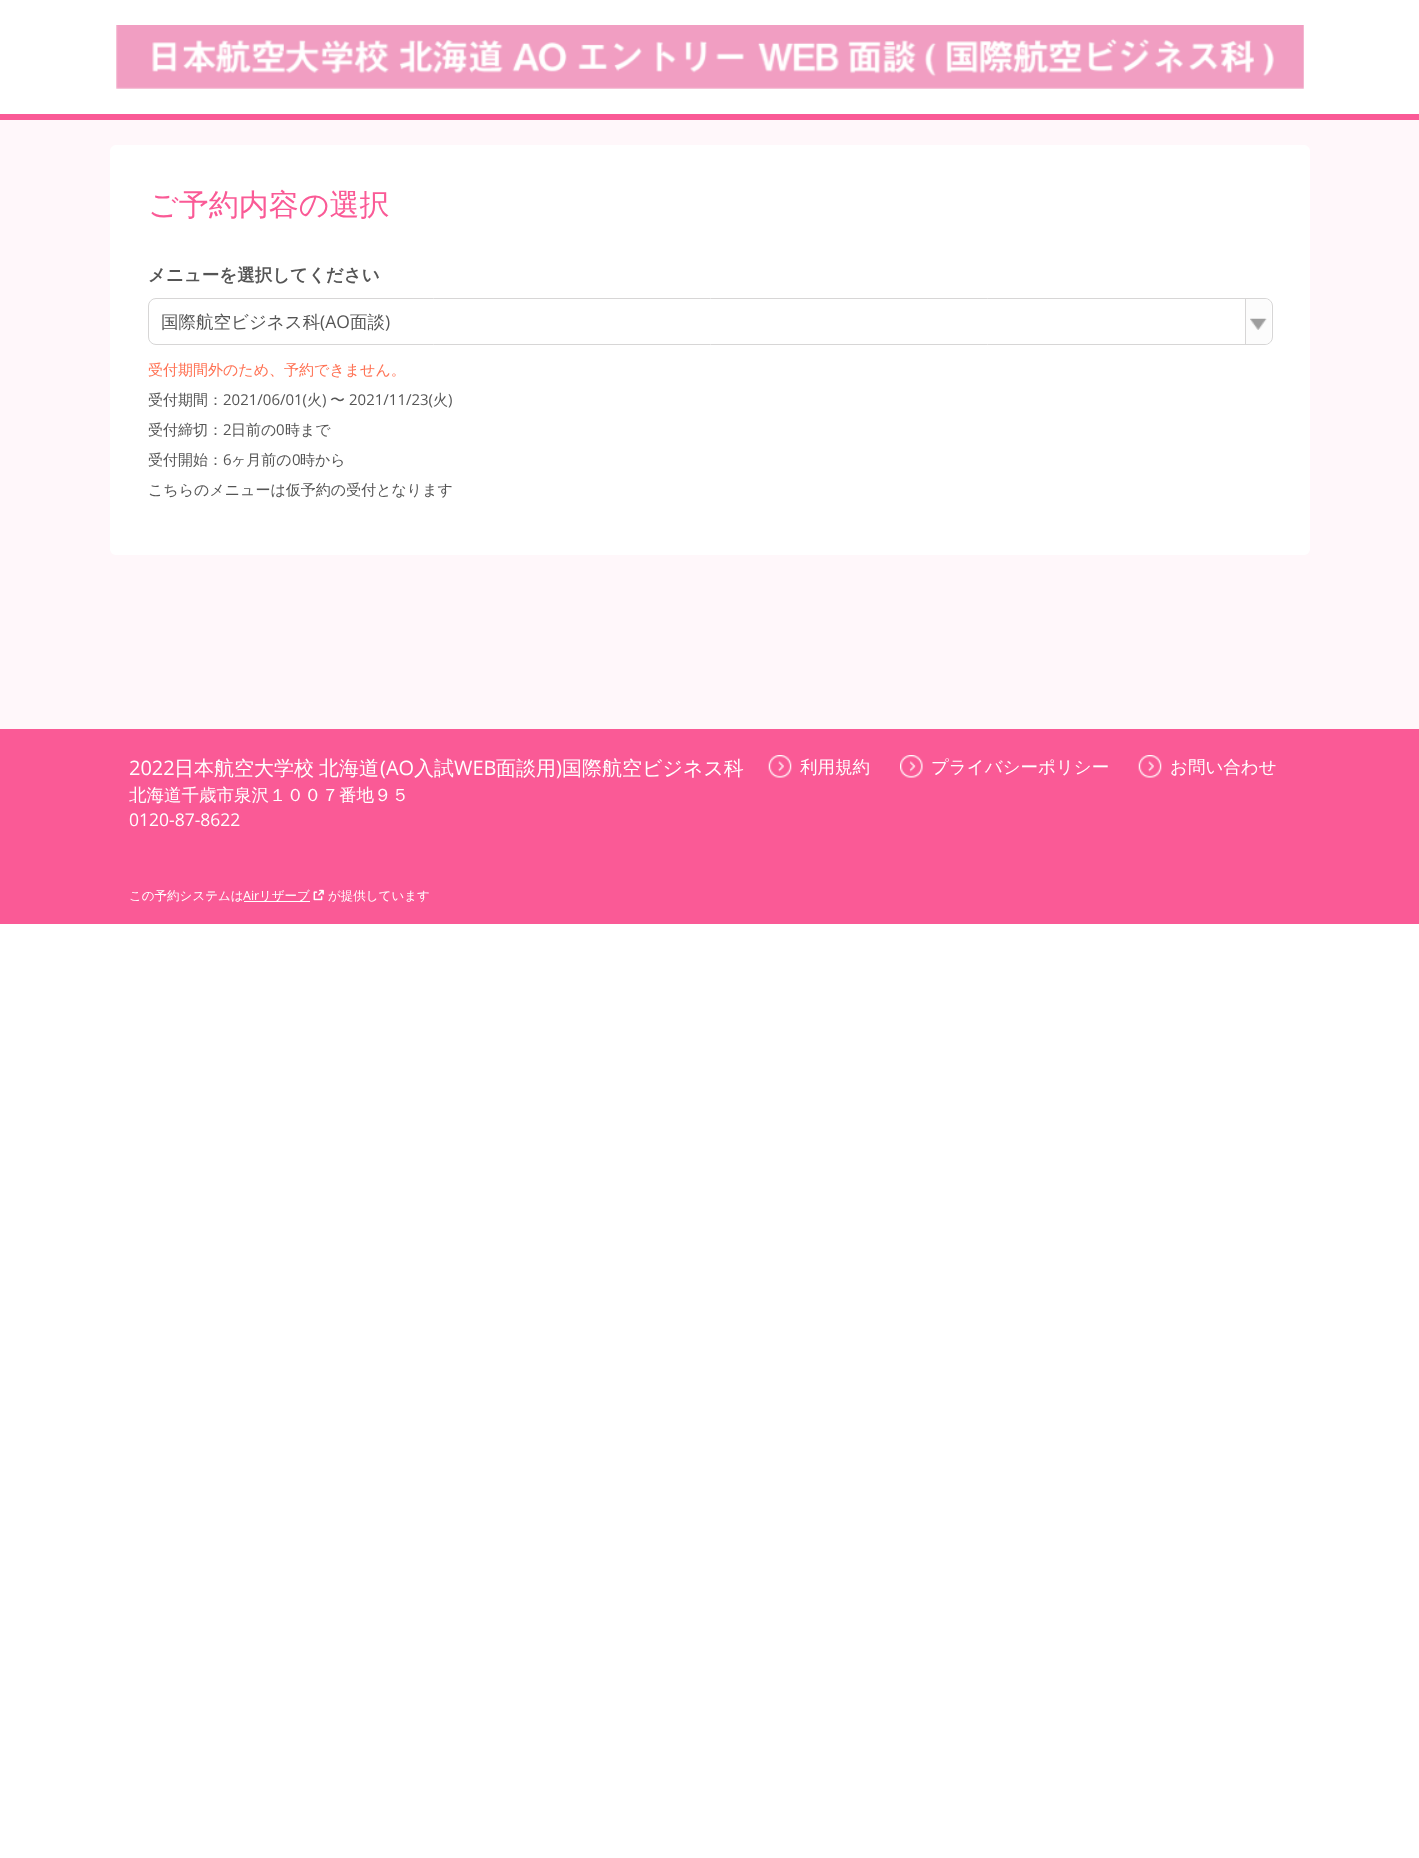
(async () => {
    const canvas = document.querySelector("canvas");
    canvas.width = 1419;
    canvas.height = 1858;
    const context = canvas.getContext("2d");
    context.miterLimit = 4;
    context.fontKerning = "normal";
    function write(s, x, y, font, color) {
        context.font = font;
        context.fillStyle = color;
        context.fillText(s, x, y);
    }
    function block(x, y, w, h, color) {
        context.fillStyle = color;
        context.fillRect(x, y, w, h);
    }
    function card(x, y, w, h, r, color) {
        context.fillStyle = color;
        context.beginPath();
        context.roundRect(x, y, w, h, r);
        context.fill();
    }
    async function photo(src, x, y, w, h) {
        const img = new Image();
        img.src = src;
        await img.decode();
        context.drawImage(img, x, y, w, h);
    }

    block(0, 0, 1419, 1858, "rgb(255, 255, 255)");
    block(0, 114, 1419, 6, "rgb(250, 90, 150)");
    await photo("media/1.png", 116, 25, 1188, 64);
    block(0, 120, 1419, 609, "rgb(255, 247, 250)");
    card(110, 145, 1200, 410, 6, "rgb(255, 255, 255)");
    write("ご予約内容の選択", 148, 215, "500 30px WenQuanYi Zen Hei", "rgb(250, 90, 150)");
    write("メニューを選択してください", 148, 281, "bold 17.5px WenQuanYi Zen Hei", "rgb(85, 85, 85)");
    context.beginPath();
    context.roundRect(148.5, 298.5, 1124, 46, 7.5);
    context.strokeStyle = "rgb(215, 214, 214)";
    context.stroke();
    write("国際航空ビジネス科", 161, 328, "500 17.5px WenQuanYi Zen Hei", "rgb(85, 85, 85)");
    write("(AO", 320, 328, "17.5px Open Sans", "rgb(85, 85, 85)");
    write("面談", 350, 328, "500 17.5px WenQuanYi Zen Hei", "rgb(85, 85, 85)");
    write(")", 385, 328, "17.5px Open Sans", "rgb(85, 85, 85)");
    context.fillStyle = "rgb(252, 252, 252)";
    context.beginPath();
    context.roundRect(1245, 299, 26, 45, [0, 6, 6, 0]);
    context.fill();
    block(1245, 299, 1, 45, "rgb(215, 214, 214)");
    await photo("media/2.png", 1250, 318, 17, 12);
    write("受付期間外のため、予約できません。", 148, 375, "500 15px WenQuanYi Zen Hei", "rgb(255, 113, 83)");
    write("受付期間：", 148, 405, "500 15px WenQuanYi Zen Hei", "rgb(85, 85, 85)");
    write("2021/06/01(", 223, 405, "15px Open Sans", "rgb(85, 85, 85)");
    write("火", 307, 405, "500 15px WenQuanYi Zen Hei", "rgb(85, 85, 85)");
    write(")", 322, 405, "15px Open Sans", "rgb(85, 85, 85)");
    write("〜", 330, 405, "500 15px WenQuanYi Zen Hei", "rgb(85, 85, 85)");
    write("2021/11/23(", 349, 405, "15px Open Sans", "rgb(85, 85, 85)");
    write("火", 433, 405, "500 15px WenQuanYi Zen Hei", "rgb(85, 85, 85)");
    write(")", 448, 405, "15px Open Sans", "rgb(85, 85, 85)");
    write("受付締切：", 148, 435, "500 15px WenQuanYi Zen Hei", "rgb(85, 85, 85)");
    write("2", 223, 435, "15px Open Sans", "rgb(85, 85, 85)");
    write("日前の", 231, 435, "500 15px WenQuanYi Zen Hei", "rgb(85, 85, 85)");
    write("0", 276, 435, "15px Open Sans", "rgb(85, 85, 85)");
    write("時まで", 285, 435, "500 15px WenQuanYi Zen Hei", "rgb(85, 85, 85)");
    write("受付開始：", 148, 465, "500 15px WenQuanYi Zen Hei", "rgb(85, 85, 85)");
    write("6", 223, 465, "15px Open Sans", "rgb(85, 85, 85)");
    write("ヶ月前の", 231, 465, "500 15px WenQuanYi Zen Hei", "rgb(85, 85, 85)");
    write("0", 292, 465, "15px Open Sans", "rgb(85, 85, 85)");
    write("時から", 300, 465, "500 15px WenQuanYi Zen Hei", "rgb(85, 85, 85)");
    write("こちらのメニューは仮予約の受付となります", 148, 495, "500 15px WenQuanYi Zen Hei", "rgb(85, 85, 85)");
    block(0, 729, 1419, 195, "rgb(250, 90, 150)");
    write("2022", 129, 775, "20px Open Sans", "rgb(255, 255, 255)");
    context.wordSpacing = "-1px";
    write("日本航空大学校 北海道", 174, 775, "500 20px WenQuanYi Zen Hei", "rgb(255, 255, 255)");
    context.wordSpacing = "0px";
    write("(AO", 380, 775, "20px Open Sans", "rgb(255, 255, 255)");
    write("入試", 414, 775, "500 20px WenQuanYi Zen Hei", "rgb(255, 255, 255)");
    write("WEB", 454, 775, "20px Open Sans", "rgb(255, 255, 255)");
    write("面談用 国際航空ビジネス科", 496, 775, "500 20px WenQuanYi Zen Hei", "rgb(255, 255, 255)");
    write(")", 556, 775, "20px Open Sans", "rgb(255, 255, 255)");
    write("北海道千歳市泉沢１００７番地９５", 129, 801, "500 17.5px WenQuanYi Zen Hei", "rgb(255, 255, 255)");
    write("0120-87-8622", 129, 826, "17.5px Open Sans", "rgb(255, 255, 255)");
    await photo("media/3.png", 768, 755, 24, 23);
    write("利用規約", 800, 773, "500 17.5px WenQuanYi Zen Hei", "rgb(255, 255, 255)");
    await photo("media/4.png", 900, 755, 23, 23);
    write("プライバシーポリシー", 931, 773, "500 17.5px WenQuanYi Zen Hei", "rgb(255, 255, 255)");
    await photo("media/5.png", 1138, 755, 24, 23);
    write("お問い合わせ", 1170, 773, "500 17.5px WenQuanYi Zen Hei", "rgb(255, 255, 255)");
    write("この予約システムは", 129, 900, "500 12.5px WenQuanYi Zen Hei", "rgb(255, 255, 255)");
    write("Air", 243, 900, "12.5px Open Sans", "rgb(255, 255, 255)");
    block(244, 901, 66, 1, "rgb(255, 255, 255)");
    write("リザーブ", 259, 900, "500 12.5px WenQuanYi Zen Hei", "rgb(255, 255, 255)");
    await photo("media/6.png", 313, 889, 11, 12);
    write("が提供しています", 328, 900, "500 12.5px WenQuanYi Zen Hei", "rgb(255, 255, 255)");
})();
